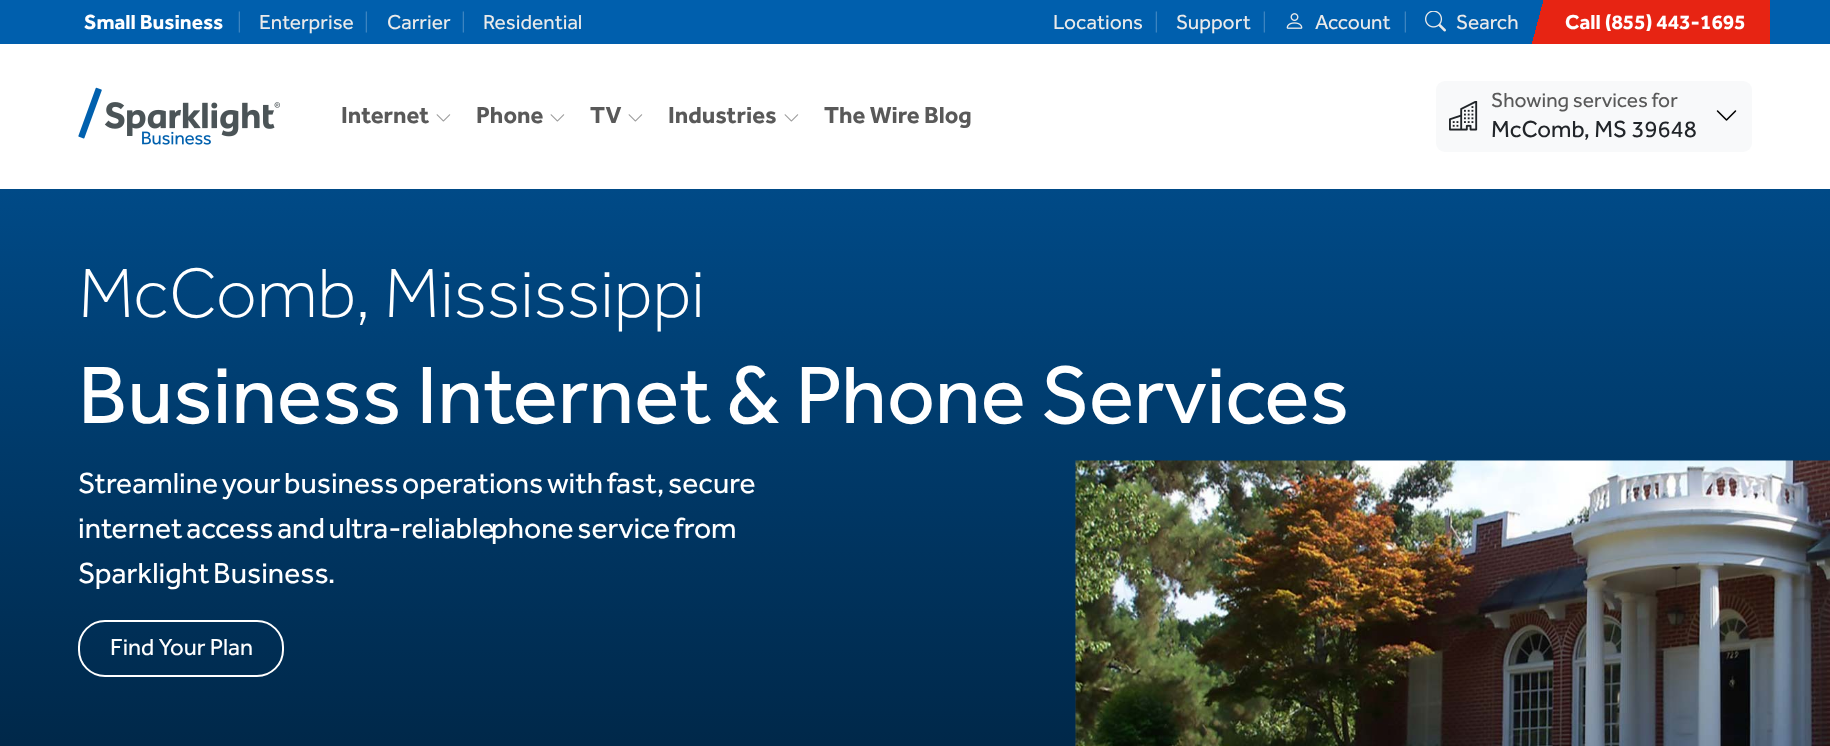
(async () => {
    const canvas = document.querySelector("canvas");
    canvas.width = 1830;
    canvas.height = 746;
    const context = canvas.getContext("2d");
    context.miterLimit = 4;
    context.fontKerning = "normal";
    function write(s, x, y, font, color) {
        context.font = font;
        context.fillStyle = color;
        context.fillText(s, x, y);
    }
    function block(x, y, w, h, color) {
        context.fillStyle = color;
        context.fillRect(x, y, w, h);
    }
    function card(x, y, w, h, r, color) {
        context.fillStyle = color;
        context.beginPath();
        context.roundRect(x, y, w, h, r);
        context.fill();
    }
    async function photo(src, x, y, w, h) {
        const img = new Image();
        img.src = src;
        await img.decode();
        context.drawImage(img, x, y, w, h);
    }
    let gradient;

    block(0, 0, 1830, 746, "rgb(255, 255, 255)");
    block(0, 0, 1830, 44, "rgb(0, 95, 173)");
    write("Small Business", 84, 29, "bold 21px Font", "rgb(255, 255, 255)");
    write("|", 237, 29, "300 21px Font", "rgb(84, 148, 200)");
    write("Enterprise", 259, 29, "21px Font", "rgb(234, 234, 234)");
    write("|", 364, 29, "300 21px Font", "rgb(84, 148, 200)");
    write("Carrier", 387, 29, "21px Font", "rgb(234, 234, 234)");
    write("|", 461, 29, "300 21px Font", "rgb(84, 148, 200)");
    write("Residential", 483, 29, "21px Font", "rgb(234, 234, 234)");
    write("Locations", 1053, 29, "21px Font", "rgb(234, 234, 234)");
    write("|", 1154, 29, "300 21px Font", "rgb(84, 148, 200)");
    write("Support", 1176, 29, "21px Font", "rgb(234, 234, 234)");
    write("|", 1262, 29, "300 21px Font", "rgb(84, 148, 200)");
    await photo("media/1.png", 1286, 13, 17, 16);
    write("Account", 1315, 29, "21px Font", "rgb(234, 234, 234)");
    write("|", 1403, 29, "300 21px Font", "rgb(84, 148, 200)");
    await photo("media/2.png", 1425, 11, 21, 21);
    write("Search", 1456, 29, "21px Font", "rgb(234, 234, 234)");
    gradient = context.createLinearGradient(1531, -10, 1767, 53);
    gradient.addColorStop(0.06, "rgb(0, 95, 173)");
    gradient.addColorStop(0.06, "rgb(231, 36, 19)");
    context.fillStyle = gradient;
    context.fillRect(1532, 0, 238, 44);
    write("Call (855) 443-1695", 1565, 29, "bold 21px Font", "rgb(255, 255, 255)");
    await photo("media/3.png", 78, 87, 202, 58);
    write("Internet", 341, 123, "bold 24px Font", "rgb(89, 89, 89)");
    await photo("media/4.png", 436, 114, 15, 8);
    write("Phone", 476, 123, "bold 24px Font", "rgb(89, 89, 89)");
    await photo("media/4.png", 550, 114, 15, 8);
    write("TV", 590, 123, "bold 24px Font", "rgb(89, 89, 89)");
    await photo("media/4.png", 628, 114, 15, 8);
    write("Industries", 668, 123, "bold 24px Font", "rgb(89, 89, 89)");
    await photo("media/4.png", 784, 114, 15, 8);
    write("The Wire Blog", 824, 123, "bold 24px Font", "rgb(89, 89, 89)");
    card(1436, 81, 316, 71, 9, "rgb(248, 249, 250)");
    await photo("media/5.png", 1449, 101, 29, 30);
    write("Showing services for", 1491, 107, "21px Font", "rgb(89, 89, 89)");
    write("McComb, MS 39648", 1491, 137, "24px Font", "rgb(33, 37, 41)");
    await photo("media/6.png", 1716, 110, 21, 11);
    gradient = context.createLinearGradient(915, 189, 915, 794);
    gradient.addColorStop(0, "rgb(0, 74, 135)");
    gradient.addColorStop(1, "rgb(0, 37, 68)");
    context.fillStyle = gradient;
    context.fillRect(0, 189, 1830, 557);
    write("McComb, Mississippi", 78, 317, "300 72px Font", "rgb(255, 255, 255)");
    write("Business Internet & Phone Services", 78, 423, "84px Font", "rgb(255, 255, 255)");
    context.wordSpacing = "-1.75px";
    write("Streamline your business operations with fast, secure", 78, 493, "30px Font", "rgb(255, 255, 255)");
    write("internet access and ultra-reliable", 78, 538, "30px Font", "rgb(255, 255, 255)");
    write("phone service from", 491, 538, "30px Font", "rgb(255, 255, 255)");
    write("Sparklight Business.", 78, 583, "30px Font", "rgb(255, 255, 255)");
    context.beginPath();
    context.roundRect(79, 621, 204, 55, 26);
    context.strokeStyle = "rgb(255, 255, 255)";
    context.lineWidth = 2;
    context.stroke();
    context.wordSpacing = "0px";
    write("Find Your Plan", 110, 655, "24px Font", "rgb(255, 255, 255)");
    await photo("media/7.png", 1075, 460, 755, 286);
})();
